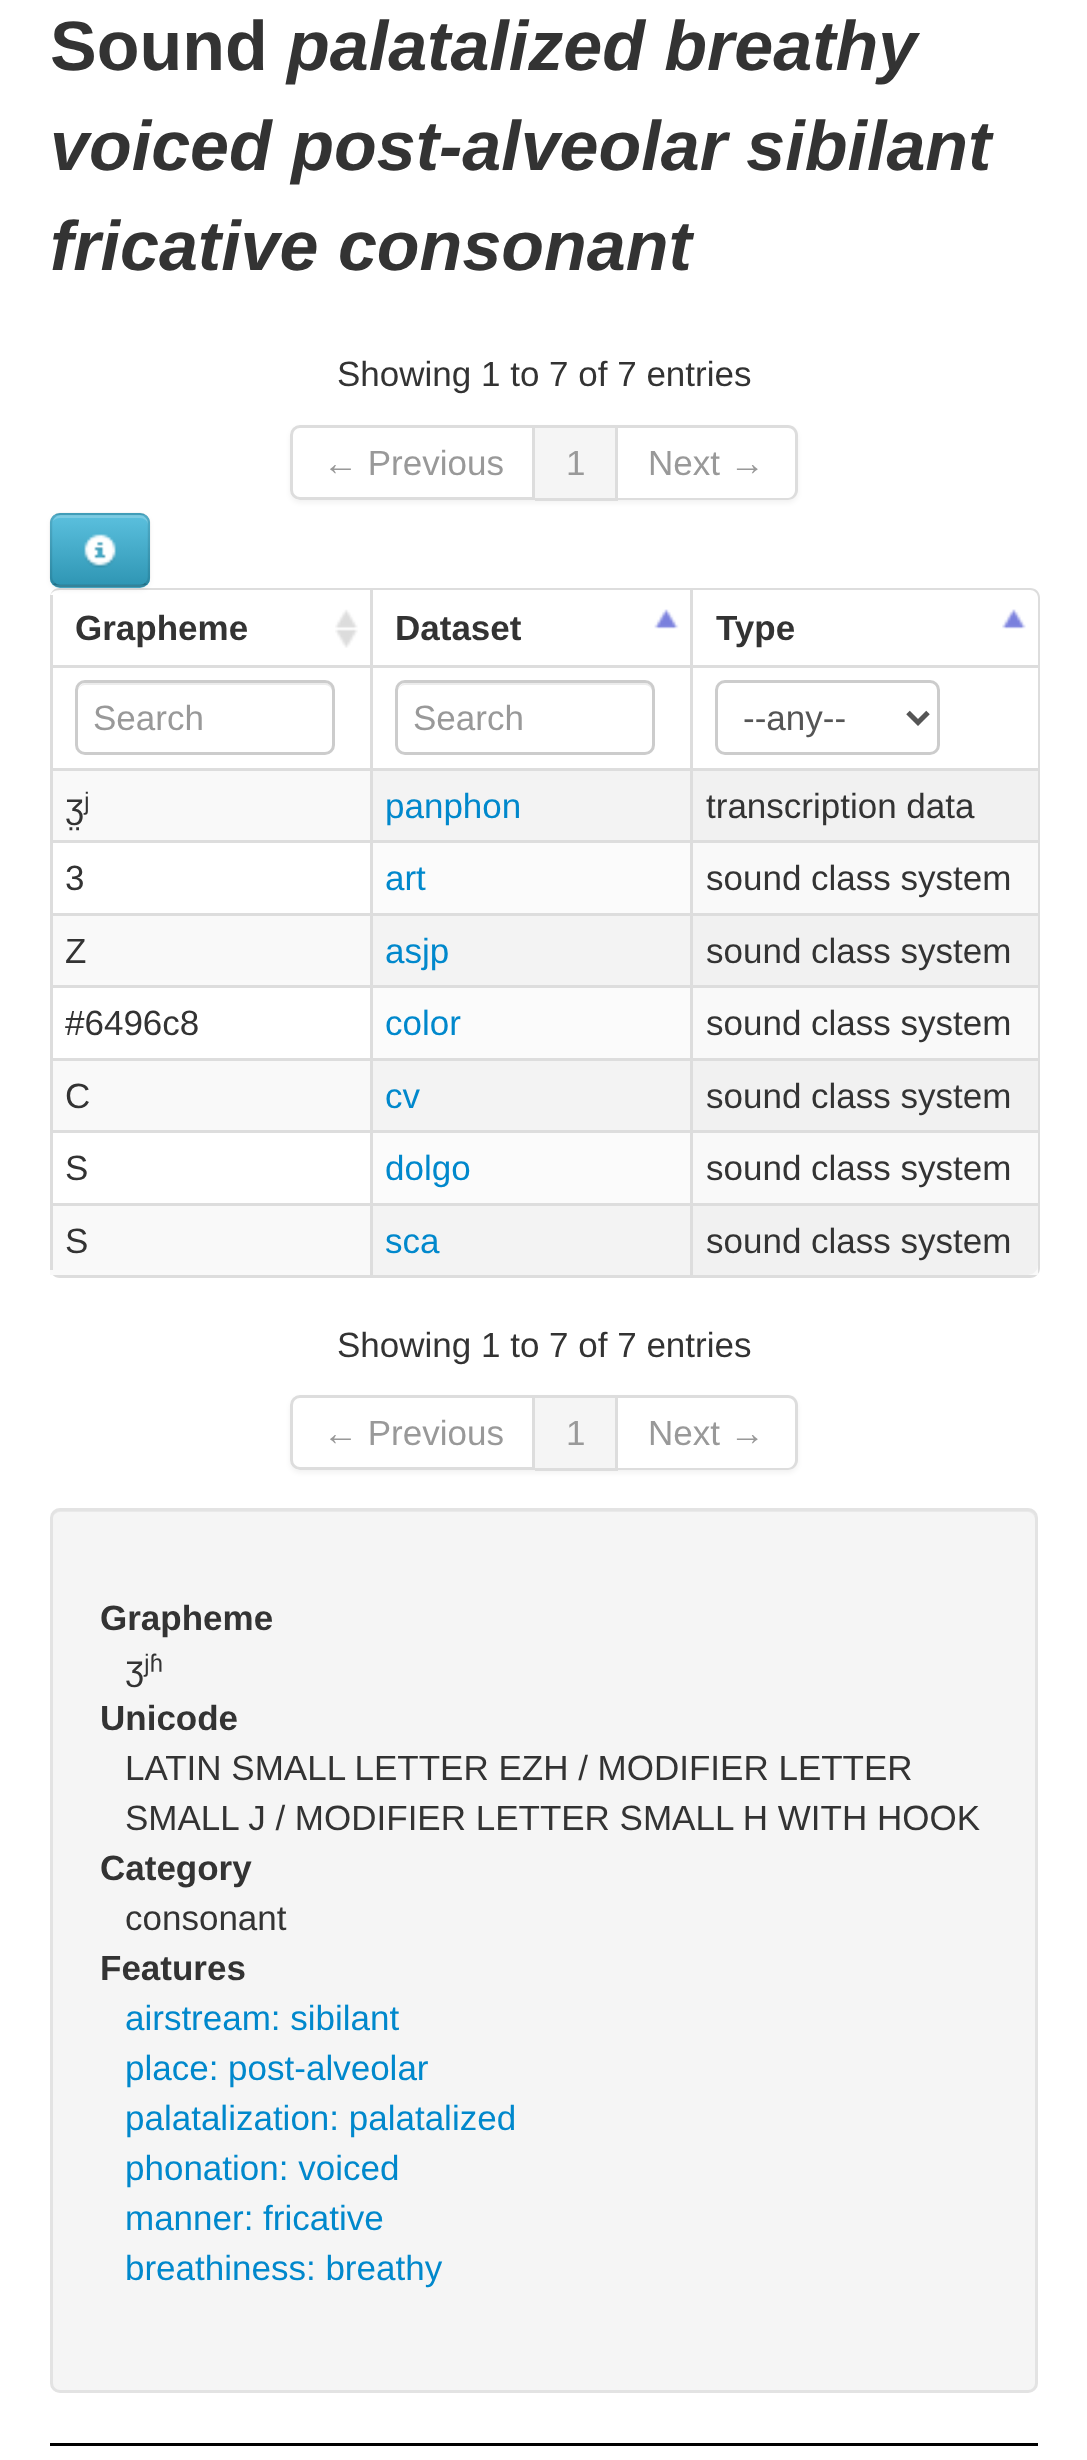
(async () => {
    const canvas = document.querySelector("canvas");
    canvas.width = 1087;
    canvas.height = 2460;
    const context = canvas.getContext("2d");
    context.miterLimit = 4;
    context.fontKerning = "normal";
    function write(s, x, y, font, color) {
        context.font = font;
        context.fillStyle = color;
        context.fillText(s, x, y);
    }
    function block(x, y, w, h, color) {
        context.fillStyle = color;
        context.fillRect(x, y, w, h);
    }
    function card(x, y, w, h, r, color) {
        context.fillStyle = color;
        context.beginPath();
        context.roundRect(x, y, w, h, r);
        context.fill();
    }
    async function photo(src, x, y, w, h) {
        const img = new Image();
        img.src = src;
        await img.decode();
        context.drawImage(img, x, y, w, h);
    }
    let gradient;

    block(0, 0, 1087, 2460, "rgb(255, 255, 255)");
    write("Sound", 50, 70, "bold 70px Liberation Sans", "rgb(51, 51, 51)");
    write("palatalized breathy", 287, 70, "italic bold 70px Liberation Sans", "rgb(51, 51, 51)");
    write("voiced post-alveolar sibilant", 50, 170, "italic bold 70px Liberation Sans", "rgb(51, 51, 51)");
    write("fricative consonant", 50, 270, "italic bold 70px Liberation Sans", "rgb(51, 51, 51)");
    write("Showing 1 to 7 of 7 entries", 337, 386, "35px Liberation Sans", "rgb(51, 51, 51)");
    context.save();
    context.beginPath();
    context.moveTo(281, 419);
    context.lineTo(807, 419);
    context.lineTo(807, 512);
    context.lineTo(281, 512);
    context.closePath();
    context.moveTo(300, 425);
    context.lineTo(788, 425);
    context.bezierCurveTo(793.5, 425, 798, 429.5, 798, 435);
    context.lineTo(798, 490);
    context.bezierCurveTo(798, 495.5, 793.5, 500, 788, 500);
    context.lineTo(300, 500);
    context.bezierCurveTo(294.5, 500, 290, 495.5, 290, 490);
    context.lineTo(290, 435);
    context.bezierCurveTo(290, 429.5, 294.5, 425, 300, 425);
    context.closePath();
    context.clip("evenodd");
    context.fillStyle = "rgba(0, 0, 0, 0.05)";
    context.filter = "blur(2.5px)";
    context.beginPath();
    context.roundRect(290, 428, 508, 75, 10);
    context.fill();
    context.filter = "none";
    context.restore();
    context.beginPath();
    context.roundRect(291.5, 426.5, 242, 72, [8.5, 0, 0, 8.5]);
    context.strokeStyle = "rgb(221, 221, 221)";
    context.lineWidth = 3;
    context.stroke();
    write("← Previous", 323, 475, "35px Liberation Sans", "rgb(153, 153, 153)");
    block(535, 428, 80, 70, "rgb(245, 245, 245)");
    block(535, 425, 83, 3, "rgb(221, 221, 221)");
    block(615, 425, 3, 75, "rgb(221, 221, 221)");
    block(535, 498, 83, 3, "rgb(221, 221, 221)");
    write("1", 566, 475, "35px Liberation Sans", "rgb(153, 153, 153)");
    context.fillStyle = "rgb(221, 221, 221)";
    context.beginPath();
    context.moveTo(618, 425);
    context.lineTo(788, 425);
    context.bezierCurveTo(793, 425, 798, 429, 798, 435);
    context.lineTo(798, 490);
    context.bezierCurveTo(798, 496, 793, 500, 788, 500);
    context.lineTo(618, 500);
    context.closePath();
    context.moveTo(618, 428);
    context.lineTo(788, 428);
    context.bezierCurveTo(792, 428, 795, 431, 795, 435);
    context.lineTo(795, 490);
    context.bezierCurveTo(795, 494, 792, 498, 788, 498);
    context.lineTo(618, 498);
    context.closePath();
    context.fill("evenodd");
    write("Next →", 648, 475, "35px Liberation Sans", "rgb(153, 153, 153)");
    context.fillStyle = "rgb(221, 221, 221)";
    context.beginPath();
    context.moveTo(60, 588);
    context.lineTo(1030, 588);
    context.bezierCurveTo(1036, 588, 1040, 592, 1040, 598);
    context.lineTo(1040, 1268);
    context.bezierCurveTo(1040, 1273, 1036, 1278, 1030, 1278);
    context.lineTo(60, 1278);
    context.bezierCurveTo(54, 1278, 50, 1273, 50, 1268);
    context.lineTo(50, 598);
    context.bezierCurveTo(50, 592, 54, 588, 60, 588);
    context.closePath();
    context.moveTo(60, 590);
    context.lineTo(1030, 590);
    context.bezierCurveTo(1034, 590, 1038, 593, 1038, 598);
    context.lineTo(1038, 1268);
    context.bezierCurveTo(1038, 1272, 1034, 1275, 1030, 1275);
    context.lineTo(60, 1275);
    context.bezierCurveTo(54, 1275, 50, 1272, 50, 1268);
    context.lineTo(50, 598);
    context.bezierCurveTo(50, 593, 54, 590, 60, 590);
    context.closePath();
    context.fill("evenodd");
    block(50, 595, 3, 70, "rgb(221, 221, 221)");
    context.fillStyle = "rgba(0, 0, 0, 0.05)";
    context.filter = "blur(2.5px)";
    context.beginPath();
    context.roundRect(50, 515, 100, 75, 10);
    context.fill();
    context.filter = "none";
    card(50, 513, 100, 75, 10, "rgb(73, 175, 205)");
    context.save();
    context.beginPath();
    context.roundRect(50, 513, 100, 75, 10);
    context.clip();
    gradient = context.createLinearGradient(100, 515, 100, 585);
    gradient.addColorStop(0, "rgb(91, 192, 222)");
    gradient.addColorStop(1, "rgb(47, 150, 180)");
    context.fillStyle = gradient;
    context.fillRect(50, 515, 100, 70);
    context.restore();
    context.fillStyle = "rgba(255, 255, 255, 0.2)";
    context.beginPath();
    context.moveTo(60, 518);
    context.lineTo(140, 518);
    context.bezierCurveTo(144, 518, 148, 521, 148, 525);
    context.lineTo(148, 523);
    context.bezierCurveTo(148, 519, 144, 515, 140, 515);
    context.lineTo(61, 515);
    context.bezierCurveTo(57, 515, 54, 518, 53, 521);
    context.bezierCurveTo(55, 519, 57, 518, 60, 518);
    context.closePath();
    context.fill();
    context.beginPath();
    context.moveTo(146, 583.5);
    context.bezierCurveTo(144.5, 585.5, 142.5, 586, 140, 586);
    context.lineTo(60, 586);
    context.bezierCurveTo(57.5, 586, 55.5, 585.5, 54, 583.5);
    context.strokeStyle = "rgba(0, 0, 0, 0.25)";
    context.lineWidth = 2.5;
    context.stroke();
    context.beginPath();
    context.moveTo(54, 583.5);
    context.bezierCurveTo(52, 582, 51, 580, 51, 577.5);
    context.lineTo(51, 522.5);
    context.bezierCurveTo(51, 520, 52, 518, 54, 516.5);
    context.bezierCurveTo(55.5, 514.5, 57.5, 514, 60, 514);
    context.lineTo(140, 514);
    context.bezierCurveTo(142.5, 514, 144.5, 514.5, 146, 516.5);
    context.bezierCurveTo(148, 518, 149, 520, 149, 522.5);
    context.lineTo(149, 577.5);
    context.bezierCurveTo(149, 580, 148, 582, 146, 583.5);
    context.strokeStyle = "rgba(0, 0, 0, 0.1)";
    context.stroke();
    await photo("media/1.png", 84, 534, 32, 34);
    await photo("media/2.png", 335, 609, 23, 39);
    write("Grapheme", 75, 640, "bold 35px Liberation Sans", "rgb(51, 51, 51)");
    await photo("media/3.png", 654, 609, 25, 20);
    block(370, 590, 3, 75, "rgb(221, 221, 221)");
    write("Dataset", 395, 640, "bold 35px Liberation Sans", "rgb(51, 51, 51)");
    await photo("media/4.png", 1002, 609, 24, 20);
    block(690, 590, 3, 75, "rgb(221, 221, 221)");
    write("Type", 716, 640, "bold 35px Liberation Sans", "rgb(51, 51, 51)");
    block(50, 665, 988, 3, "rgb(221, 221, 221)");
    block(50, 665, 3, 103, "rgb(221, 221, 221)");
    context.fillStyle = "rgb(236, 236, 236)";
    context.beginPath();
    context.moveTo(85, 685);
    context.lineTo(325, 685);
    context.bezierCurveTo(329, 685, 332, 688, 332, 692);
    context.lineTo(332, 749);
    context.bezierCurveTo(333, 748, 333, 746, 333, 745);
    context.lineTo(333, 691);
    context.bezierCurveTo(333, 687, 329, 683, 325, 683);
    context.lineTo(86, 683);
    context.bezierCurveTo(82, 683, 78, 687, 78, 691);
    context.lineTo(78, 692);
    context.bezierCurveTo(78, 688, 81, 685, 85, 685);
    context.closePath();
    context.fill();
    context.beginPath();
    context.roundRect(76.5, 681.5, 257, 72, 8.5);
    context.strokeStyle = "rgb(204, 204, 204)";
    context.lineWidth = 3;
    context.stroke();
    write("Search", 93, 730, "35px Liberation Sans", "rgb(153, 153, 153)");
    block(370, 665, 3, 103, "rgb(221, 221, 221)");
    context.fillStyle = "rgb(236, 236, 236)";
    context.beginPath();
    context.moveTo(405, 685);
    context.lineTo(645, 685);
    context.bezierCurveTo(649, 685, 652, 688, 652, 692);
    context.lineTo(652, 749);
    context.bezierCurveTo(653, 748, 653, 746, 653, 745);
    context.lineTo(653, 691);
    context.bezierCurveTo(653, 687, 649, 683, 645, 683);
    context.lineTo(406, 683);
    context.bezierCurveTo(402, 683, 398, 687, 398, 691);
    context.lineTo(398, 692);
    context.bezierCurveTo(398, 688, 401, 685, 405, 685);
    context.closePath();
    context.fill();
    context.beginPath();
    context.roundRect(396.5, 681.5, 257, 72, 8.5);
    context.stroke();
    write("Search", 413, 730, "35px Liberation Sans", "rgb(153, 153, 153)");
    block(690, 665, 3, 103, "rgb(221, 221, 221)");
    context.beginPath();
    context.roundRect(716.5, 681.5, 222, 72, 8.5);
    context.stroke();
    context.beginPath();
    context.moveTo(908, 712.5);
    context.lineTo(918, 722.5);
    context.lineTo(928, 712.5);
    context.strokeStyle = "rgb(85, 85, 85)";
    context.lineWidth = 5;
    context.stroke();
    write("--any--", 743, 730, "35px Liberation Sans", "rgb(85, 85, 85)");
    block(53, 771, 317, 69, "rgb(249, 249, 249)");
    block(50, 768, 988, 3, "rgb(221, 221, 221)");
    block(50, 768, 3, 72, "rgb(221, 221, 221)");
    write("ʒ̤ʲ", 65, 818, "35px Liberation Sans", "rgb(51, 51, 51)");
    block(373, 771, 317, 69, "rgb(243, 243, 243)");
    block(370, 768, 3, 72, "rgb(221, 221, 221)");
    write("panphon", 385, 818, "35px Liberation Sans", "rgb(0, 136, 204)");
    block(693, 771, 345, 69, "rgb(241, 241, 241)");
    block(690, 768, 3, 72, "rgb(221, 221, 221)");
    write("transcription data", 706, 818, "35px Liberation Sans", "rgb(51, 51, 51)");
    block(50, 840, 988, 3, "rgb(221, 221, 221)");
    block(50, 840, 3, 73, "rgb(221, 221, 221)");
    write("3", 65, 890, "35px Liberation Sans", "rgb(51, 51, 51)");
    block(373, 843, 317, 70, "rgb(251, 251, 251)");
    block(370, 840, 3, 73, "rgb(221, 221, 221)");
    write("art", 385, 890, "35px Liberation Sans", "rgb(0, 136, 204)");
    block(693, 843, 345, 70, "rgb(249, 249, 249)");
    block(690, 840, 3, 73, "rgb(221, 221, 221)");
    write("sound class system", 706, 890, "35px Liberation Sans", "rgb(51, 51, 51)");
    block(53, 916, 317, 69, "rgb(249, 249, 249)");
    block(50, 913, 988, 3, "rgb(221, 221, 221)");
    block(50, 913, 3, 72, "rgb(221, 221, 221)");
    write("Z", 65, 963, "35px Liberation Sans", "rgb(51, 51, 51)");
    block(373, 916, 317, 69, "rgb(243, 243, 243)");
    block(370, 913, 3, 72, "rgb(221, 221, 221)");
    write("asjp", 385, 963, "35px Liberation Sans", "rgb(0, 136, 204)");
    block(693, 916, 345, 69, "rgb(241, 241, 241)");
    block(690, 913, 3, 72, "rgb(221, 221, 221)");
    write("sound class system", 706, 963, "35px Liberation Sans", "rgb(51, 51, 51)");
    block(50, 985, 988, 3, "rgb(221, 221, 221)");
    block(50, 985, 3, 73, "rgb(221, 221, 221)");
    write("#6496c8", 65, 1035, "35px Liberation Sans", "rgb(51, 51, 51)");
    block(373, 988, 317, 70, "rgb(251, 251, 251)");
    block(370, 985, 3, 73, "rgb(221, 221, 221)");
    write("color", 385, 1035, "35px Liberation Sans", "rgb(0, 136, 204)");
    block(693, 988, 345, 70, "rgb(249, 249, 249)");
    block(690, 985, 3, 73, "rgb(221, 221, 221)");
    write("sound class system", 706, 1035, "35px Liberation Sans", "rgb(51, 51, 51)");
    block(53, 1061, 317, 69, "rgb(249, 249, 249)");
    block(50, 1058, 988, 3, "rgb(221, 221, 221)");
    block(50, 1058, 3, 72, "rgb(221, 221, 221)");
    write("C", 65, 1108, "35px Liberation Sans", "rgb(51, 51, 51)");
    block(373, 1061, 317, 69, "rgb(243, 243, 243)");
    block(370, 1058, 3, 72, "rgb(221, 221, 221)");
    write("cv", 385, 1108, "35px Liberation Sans", "rgb(0, 136, 204)");
    block(693, 1061, 345, 69, "rgb(241, 241, 241)");
    block(690, 1058, 3, 72, "rgb(221, 221, 221)");
    write("sound class system", 706, 1108, "35px Liberation Sans", "rgb(51, 51, 51)");
    block(50, 1130, 988, 3, "rgb(221, 221, 221)");
    block(50, 1130, 3, 73, "rgb(221, 221, 221)");
    write("S", 65, 1180, "35px Liberation Sans", "rgb(51, 51, 51)");
    block(373, 1133, 317, 70, "rgb(251, 251, 251)");
    block(370, 1130, 3, 73, "rgb(221, 221, 221)");
    write("dolgo", 385, 1180, "35px Liberation Sans", "rgb(0, 136, 204)");
    block(693, 1133, 345, 70, "rgb(249, 249, 249)");
    block(690, 1130, 3, 73, "rgb(221, 221, 221)");
    write("sound class system", 706, 1180, "35px Liberation Sans", "rgb(51, 51, 51)");
    block(50, 1206, 988, 69, "rgb(249, 249, 249)");
    block(50, 1203, 640, 3, "rgb(221, 221, 221)");
    block(50, 1203, 3, 67, "rgb(221, 221, 221)");
    write("S", 65, 1253, "35px Liberation Sans", "rgb(51, 51, 51)");
    block(373, 1206, 317, 69, "rgb(243, 243, 243)");
    block(370, 1203, 3, 72, "rgb(221, 221, 221)");
    write("sca", 385, 1253, "35px Liberation Sans", "rgb(0, 136, 204)");
    context.fillStyle = "rgb(241, 241, 241)";
    context.beginPath();
    context.roundRect(690, 1203, 348, 72, [0, 0, 10, 0]);
    context.fill();
    block(690, 1203, 348, 3, "rgb(221, 221, 221)");
    block(690, 1203, 3, 72, "rgb(221, 221, 221)");
    write("sound class system", 706, 1253, "35px Liberation Sans", "rgb(51, 51, 51)");
    write("Showing 1 to 7 of 7 entries", 337, 1357, "35px Liberation Sans", "rgb(51, 51, 51)");
    context.save();
    context.beginPath();
    context.moveTo(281, 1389);
    context.lineTo(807, 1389);
    context.lineTo(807, 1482);
    context.lineTo(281, 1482);
    context.closePath();
    context.moveTo(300, 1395);
    context.lineTo(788, 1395);
    context.bezierCurveTo(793.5, 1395, 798, 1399.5, 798, 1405);
    context.lineTo(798, 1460);
    context.bezierCurveTo(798, 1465.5, 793.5, 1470, 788, 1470);
    context.lineTo(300, 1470);
    context.bezierCurveTo(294.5, 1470, 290, 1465.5, 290, 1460);
    context.lineTo(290, 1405);
    context.bezierCurveTo(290, 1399.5, 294.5, 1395, 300, 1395);
    context.closePath();
    context.clip("evenodd");
    context.fillStyle = "rgba(0, 0, 0, 0.05)";
    context.filter = "blur(2.5px)";
    context.beginPath();
    context.roundRect(290, 1398, 508, 75, 10);
    context.fill();
    context.filter = "none";
    context.restore();
    context.beginPath();
    context.roundRect(291.5, 1396.5, 242, 72, [8.5, 0, 0, 8.5]);
    context.strokeStyle = "rgb(221, 221, 221)";
    context.lineWidth = 3;
    context.stroke();
    write("← Previous", 323, 1445, "35px Liberation Sans", "rgb(153, 153, 153)");
    block(535, 1398, 80, 70, "rgb(245, 245, 245)");
    block(535, 1395, 83, 3, "rgb(221, 221, 221)");
    block(615, 1395, 3, 75, "rgb(221, 221, 221)");
    block(535, 1468, 83, 3, "rgb(221, 221, 221)");
    write("1", 566, 1445, "35px Liberation Sans", "rgb(153, 153, 153)");
    context.fillStyle = "rgb(221, 221, 221)";
    context.beginPath();
    context.moveTo(618, 1395);
    context.lineTo(788, 1395);
    context.bezierCurveTo(793, 1395, 798, 1399, 798, 1405);
    context.lineTo(798, 1460);
    context.bezierCurveTo(798, 1466, 793, 1470, 788, 1470);
    context.lineTo(618, 1470);
    context.closePath();
    context.moveTo(618, 1398);
    context.lineTo(788, 1398);
    context.bezierCurveTo(792, 1398, 795, 1401, 795, 1405);
    context.lineTo(795, 1460);
    context.bezierCurveTo(795, 1464, 792, 1468, 788, 1468);
    context.lineTo(618, 1468);
    context.closePath();
    context.fill("evenodd");
    write("Next →", 648, 1445, "35px Liberation Sans", "rgb(153, 153, 153)");
    card(50, 1508, 988, 885, 10, "rgb(245, 245, 245)");
    context.fillStyle = "rgb(233, 233, 233)";
    context.beginPath();
    context.moveTo(60, 1512);
    context.lineTo(1028, 1512);
    context.bezierCurveTo(1032, 1512, 1035, 1516, 1035, 1520);
    context.lineTo(1035, 1518);
    context.bezierCurveTo(1035, 1514, 1031, 1510, 1027, 1510);
    context.lineTo(61, 1510);
    context.bezierCurveTo(57, 1510, 54, 1513, 53, 1516);
    context.bezierCurveTo(55, 1514, 57, 1512, 60, 1512);
    context.closePath();
    context.fill();
    context.beginPath();
    context.roundRect(51.5, 1509.5, 985, 882, 8.5);
    context.strokeStyle = "rgb(227, 227, 227)";
    context.stroke();
    write("Grapheme", 100, 1630, "bold 35px Liberation Sans", "rgb(51, 51, 51)");
    write("ʒʲʱ", 125, 1680, "35px Liberation Sans", "rgb(51, 51, 51)");
    write("Unicode", 100, 1730, "bold 35px Liberation Sans", "rgb(51, 51, 51)");
    write("LATIN SMALL LETTER EZH / MODIFIER LETTER", 125, 1780, "35px Liberation Sans", "rgb(51, 51, 51)");
    write("SMALL J / MODIFIER LETTER SMALL H WITH HOOK", 125, 1830, "35px Liberation Sans", "rgb(51, 51, 51)");
    write("Category", 100, 1880, "bold 35px Liberation Sans", "rgb(51, 51, 51)");
    write("consonant", 125, 1930, "35px Liberation Sans", "rgb(51, 51, 51)");
    write("Features", 100, 1980, "bold 35px Liberation Sans", "rgb(51, 51, 51)");
    write("airstream: sibilant", 125, 2030, "35px Liberation Sans", "rgb(0, 136, 204)");
    write("place: post-alveolar", 125, 2080, "35px Liberation Sans", "rgb(0, 136, 204)");
    write("palatalization: palatalized", 125, 2130, "35px Liberation Sans", "rgb(0, 136, 204)");
    write("phonation: voiced", 125, 2180, "35px Liberation Sans", "rgb(0, 136, 204)");
    write("manner: fricative", 125, 2230, "35px Liberation Sans", "rgb(0, 136, 204)");
    write("breathiness: breathy", 125, 2280, "35px Liberation Sans", "rgb(0, 136, 204)");
    block(50, 2443, 988, 3, "rgb(0, 0, 0)");
})();
